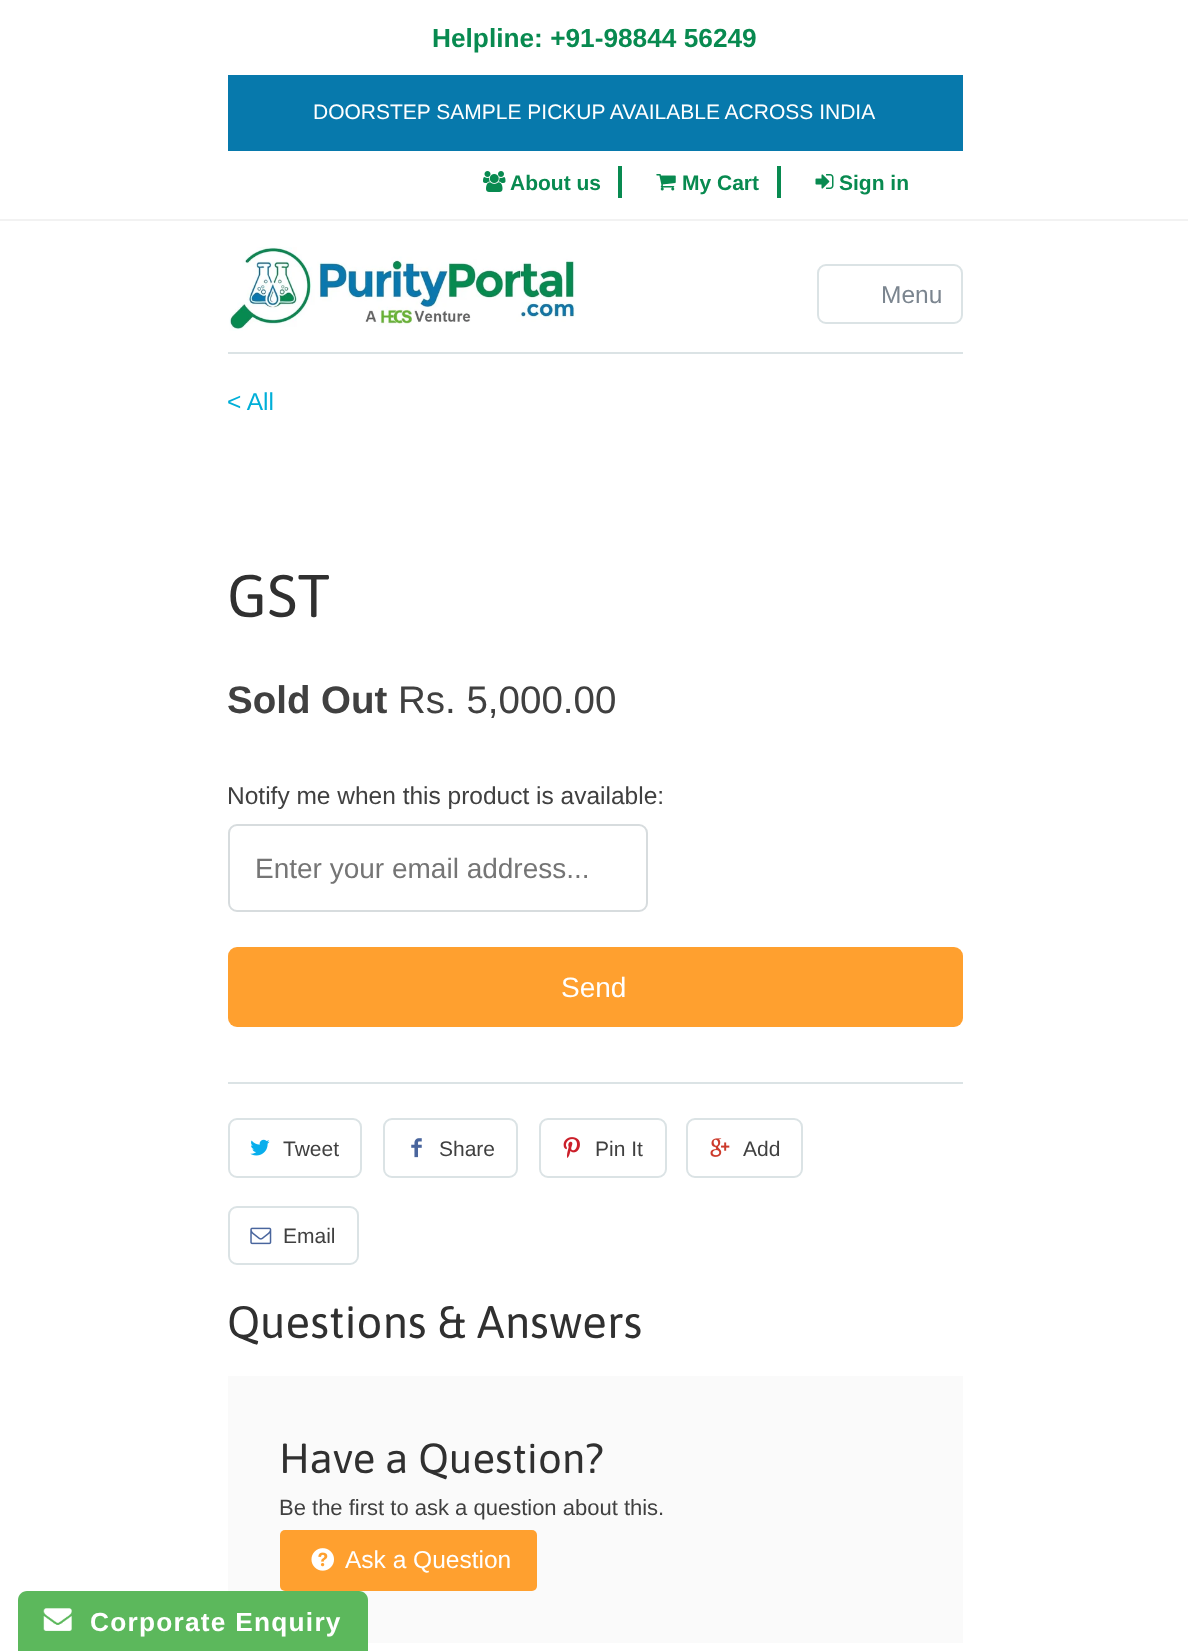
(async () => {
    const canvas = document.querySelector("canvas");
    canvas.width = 1188;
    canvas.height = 1651;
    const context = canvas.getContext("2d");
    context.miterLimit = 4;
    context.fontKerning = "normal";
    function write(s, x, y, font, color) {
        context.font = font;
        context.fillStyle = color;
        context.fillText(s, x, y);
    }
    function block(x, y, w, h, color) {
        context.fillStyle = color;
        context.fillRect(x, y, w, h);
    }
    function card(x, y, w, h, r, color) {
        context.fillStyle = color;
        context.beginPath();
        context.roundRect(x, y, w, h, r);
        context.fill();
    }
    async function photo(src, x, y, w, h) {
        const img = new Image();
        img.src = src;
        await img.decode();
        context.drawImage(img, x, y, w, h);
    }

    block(0, 0, 1188, 1651, "rgb(255, 255, 255)");
    block(0, 219, 1188, 2, "rgb(242, 242, 242)");
    write("Helpline: +91-98844 56249", 432, 47, "bold 26.25px Liberation Sans", "rgb(8, 138, 80)");
    block(228, 75, 735, 76, "rgb(7, 121, 172)");
    write("DOORSTEP SAMPLE PICKUP AVAILABLE ACROSS INDIA", 313, 119, "21px Liberation Sans", "rgb(255, 255, 255)");
    block(618, 166, 4, 32, "rgb(8, 138, 80)");
    await photo("media/1.png", 483, 171, 23, 21);
    write("About us", 510, 190, "bold 21px Liberation Sans", "rgb(8, 138, 80)");
    block(777, 166, 4, 32, "rgb(8, 138, 80)");
    await photo("media/2.png", 656, 174, 20, 17);
    write("My Cart", 682, 190, "bold 21px Liberation Sans", "rgb(8, 138, 80)");
    await photo("media/3.png", 815, 174, 19, 15);
    write("Sign in", 839, 190, "bold 21px Liberation Sans", "rgb(8, 138, 80)");
    block(228, 352, 735, 2, "rgb(219, 227, 229)");
    await photo("media/4.png", 229, 247, 347, 84);
    context.beginPath();
    context.roundRect(818, 265, 144, 58, 8);
    context.strokeStyle = "rgb(219, 227, 229)";
    context.lineWidth = 2;
    context.stroke();
    write("Menu", 881, 303, "24.5px Liberation Sans", "rgb(123, 133, 143)");
    write("< All", 227, 410, "24.5px Liberation Sans", "rgb(0, 175, 216)");
    write("GST", 227, 617, "60px Asap", "rgb(48, 48, 48)");
    write("Sold Out", 227, 713, "bold 38.5px Liberation Sans", "rgb(64, 64, 64)");
    write("Rs. 5,000.00", 398, 713, "38.5px Liberation Sans", "rgb(64, 64, 64)");
    write("Notify me when this product is available:", 227, 804, "24.5px Liberation Sans", "rgb(64, 64, 64)");
    context.beginPath();
    context.roundRect(229, 825, 418, 86, 8);
    context.strokeStyle = "rgb(215, 220, 222)";
    context.stroke();
    write("Enter your email address...", 255, 878, "28px Liberation Sans", "rgb(117, 117, 117)");
    card(228, 947, 735, 80, 9, "rgb(255, 160, 47)");
    write("Send", 561, 997, "28px Liberation Sans", "rgb(255, 255, 255)");
    block(228, 1082, 735, 2, "rgb(219, 227, 229)");
    context.beginPath();
    context.roundRect(229, 1119, 132, 58, 8);
    context.strokeStyle = "rgb(219, 227, 229)";
    context.stroke();
    await photo("media/5.png", 250, 1139, 20, 17);
    write("Tweet", 283, 1156, "21px Liberation Sans", "rgb(64, 64, 64)");
    context.beginPath();
    context.roundRect(384, 1119, 133, 58, 8);
    context.stroke();
    await photo("media/6.png", 411, 1138, 11, 20);
    write("Share", 439, 1156, "21px Liberation Sans", "rgb(64, 64, 64)");
    context.beginPath();
    context.roundRect(540, 1119, 126, 58, 8);
    context.stroke();
    await photo("media/7.png", 563, 1137, 17, 21);
    write("Pin It", 595, 1156, "21px Liberation Sans", "rgb(64, 64, 64)");
    context.beginPath();
    context.roundRect(687, 1119, 115, 58, 8);
    context.stroke();
    await photo("media/8.png", 710, 1138, 20, 19);
    write("Add", 743, 1156, "21px Liberation Sans", "rgb(64, 64, 64)");
    context.beginPath();
    context.roundRect(229, 1207, 129, 57, 8);
    context.stroke();
    await photo("media/9.png", 250, 1227, 22, 18);
    write("Email", 283, 1243, "21px Liberation Sans", "rgb(64, 64, 64)");
    write("Questions & Answers", 227, 1338, "45.5px Asap", "rgb(48, 48, 48)");
    block(228, 1376, 735, 267, "rgb(250, 250, 250)");
    write("Have a Question?", 279, 1473, "42px Asap", "rgb(48, 48, 48)");
    write("Be the first to ask a question about this.", 279, 1515, "22px Liberation Sans", "rgb(64, 64, 64)");
    card(280, 1530, 257, 61, 5, "rgb(255, 160, 47)");
    await photo("media/10.png", 311, 1548, 23, 23);
    write("Ask a Question", 345, 1568, "24.5px Liberation Sans", "rgb(255, 255, 255)");
    context.fillStyle = "rgb(92, 184, 92)";
    context.beginPath();
    context.moveTo(27, 1591);
    context.lineTo(359, 1591);
    context.bezierCurveTo(364, 1591, 368, 1595, 368, 1600);
    context.lineTo(368, 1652);
    context.lineTo(18, 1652);
    context.lineTo(18, 1600);
    context.bezierCurveTo(18, 1595, 22, 1591, 27, 1591);
    context.closePath();
    context.fill();
    await photo("media/11.png", 43, 1608, 29, 23);
    context.letterSpacing = "1.25px";
    write("Corporate Enquiry", 90, 1631, "bold 26.25px Liberation Sans", "rgb(255, 255, 255)");
})();
